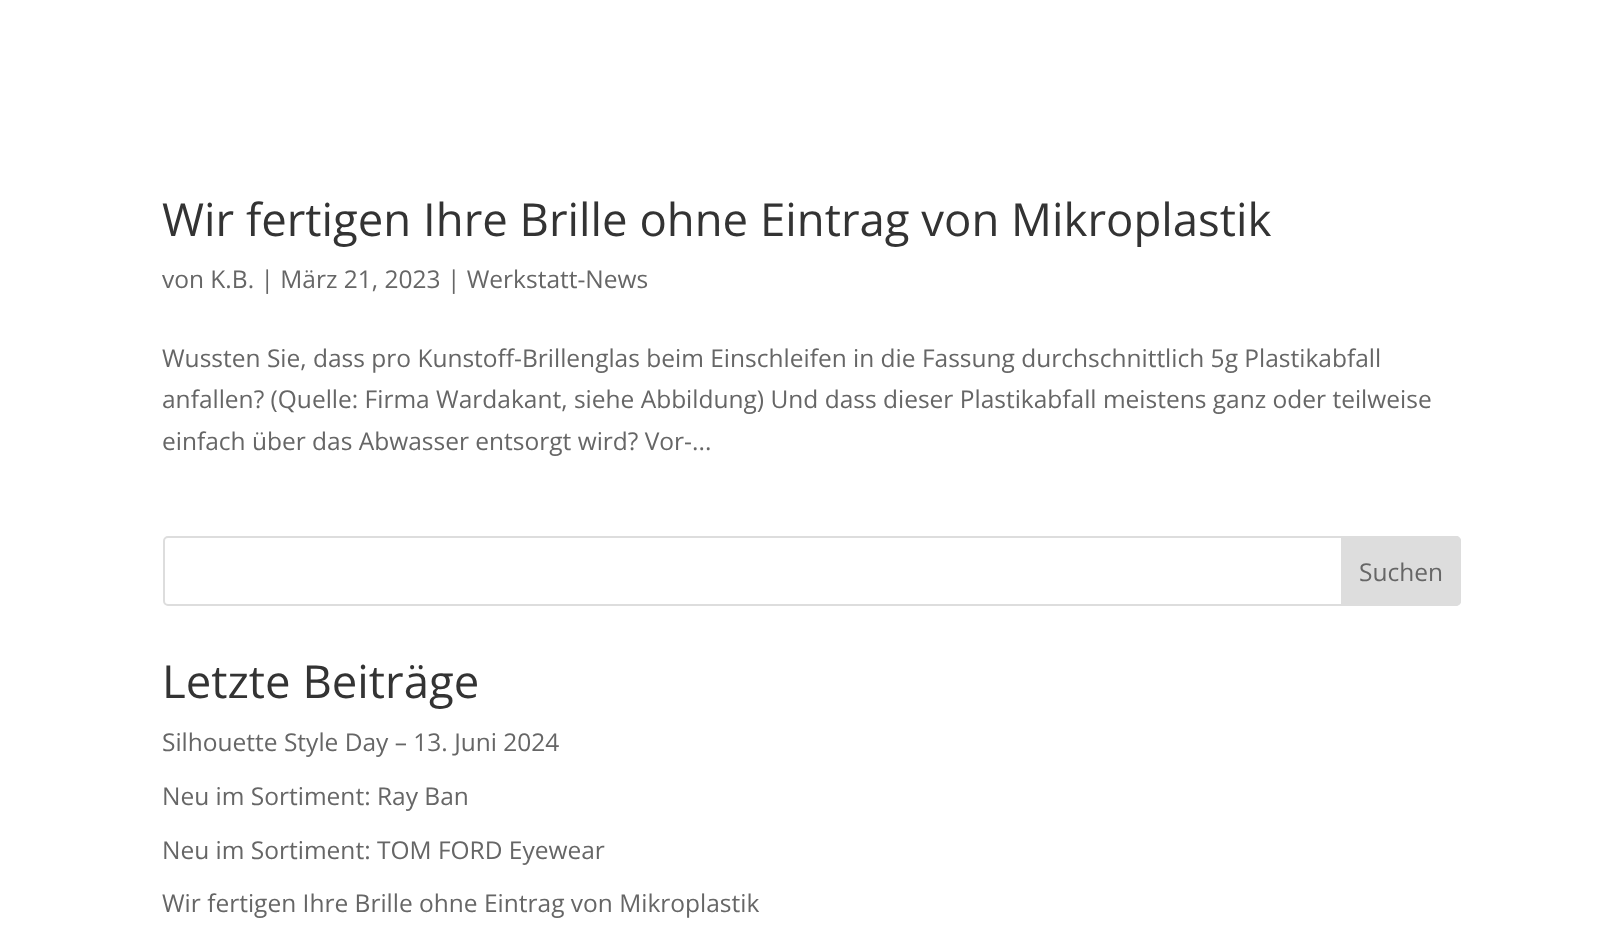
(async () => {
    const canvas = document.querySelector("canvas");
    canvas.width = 1623;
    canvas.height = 951;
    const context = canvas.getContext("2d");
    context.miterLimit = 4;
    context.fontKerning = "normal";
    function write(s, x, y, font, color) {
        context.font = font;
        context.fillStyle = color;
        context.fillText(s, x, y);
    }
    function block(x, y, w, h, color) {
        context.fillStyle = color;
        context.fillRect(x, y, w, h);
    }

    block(0, 0, 1623, 951, "rgb(255, 255, 255)");
    write("Wir fertigen Ihre Brille ohne Eintrag von Mikroplastik", 162, 236, "45.5px Open Sans", "rgb(51, 51, 51)");
    write("von K.B. | März 21, 2023 | Werkstatt-News", 162, 288, "24.5px Open Sans", "rgb(102, 102, 102)");
    write("Wussten Sie, dass pro Kunstoff-Brillenglas beim Einschleifen in die Fassung durchschnittlich 5g Plastikabfall", 162, 367, "24.5px Open Sans", "rgb(102, 102, 102)");
    write("anfallen? (Quelle: Firma Wardakant, siehe Abbildung) Und dass dieser Plastikabfall meistens ganz oder teilweise", 162, 408, "24.5px Open Sans", "rgb(102, 102, 102)");
    write("einfach über das Abwasser entsorgt wird? Vor-...", 162, 450, "24.5px Open Sans", "rgb(102, 102, 102)");
    context.beginPath();
    context.roundRect(164, 537, 1296, 68, 4);
    context.strokeStyle = "rgb(221, 221, 221)";
    context.lineWidth = 2;
    context.stroke();
    context.fillStyle = "rgb(221, 221, 221)";
    context.beginPath();
    context.roundRect(1342, 537, 118, 68, [0, 4, 4, 0]);
    context.fill();
    context.stroke();
    write("Suchen", 1359, 581, "24.5px Open Sans", "rgb(102, 102, 102)");
    write("Letzte Beiträge", 162, 698, "45.5px Open Sans", "rgb(51, 51, 51)");
    write("Silhouette Style Day – 13. Juni 2024", 162, 751, "24.5px Open Sans", "rgb(102, 102, 102)");
    write("Neu im Sortiment: Ray Ban", 162, 805, "24.5px Open Sans", "rgb(102, 102, 102)");
    write("Neu im Sortiment: TOM FORD Eyewear", 162, 859, "24.5px Open Sans", "rgb(102, 102, 102)");
    write("Wir fertigen Ihre Brille ohne Eintrag von Mikroplastik", 162, 912, "24.5px Open Sans", "rgb(102, 102, 102)");
})();
